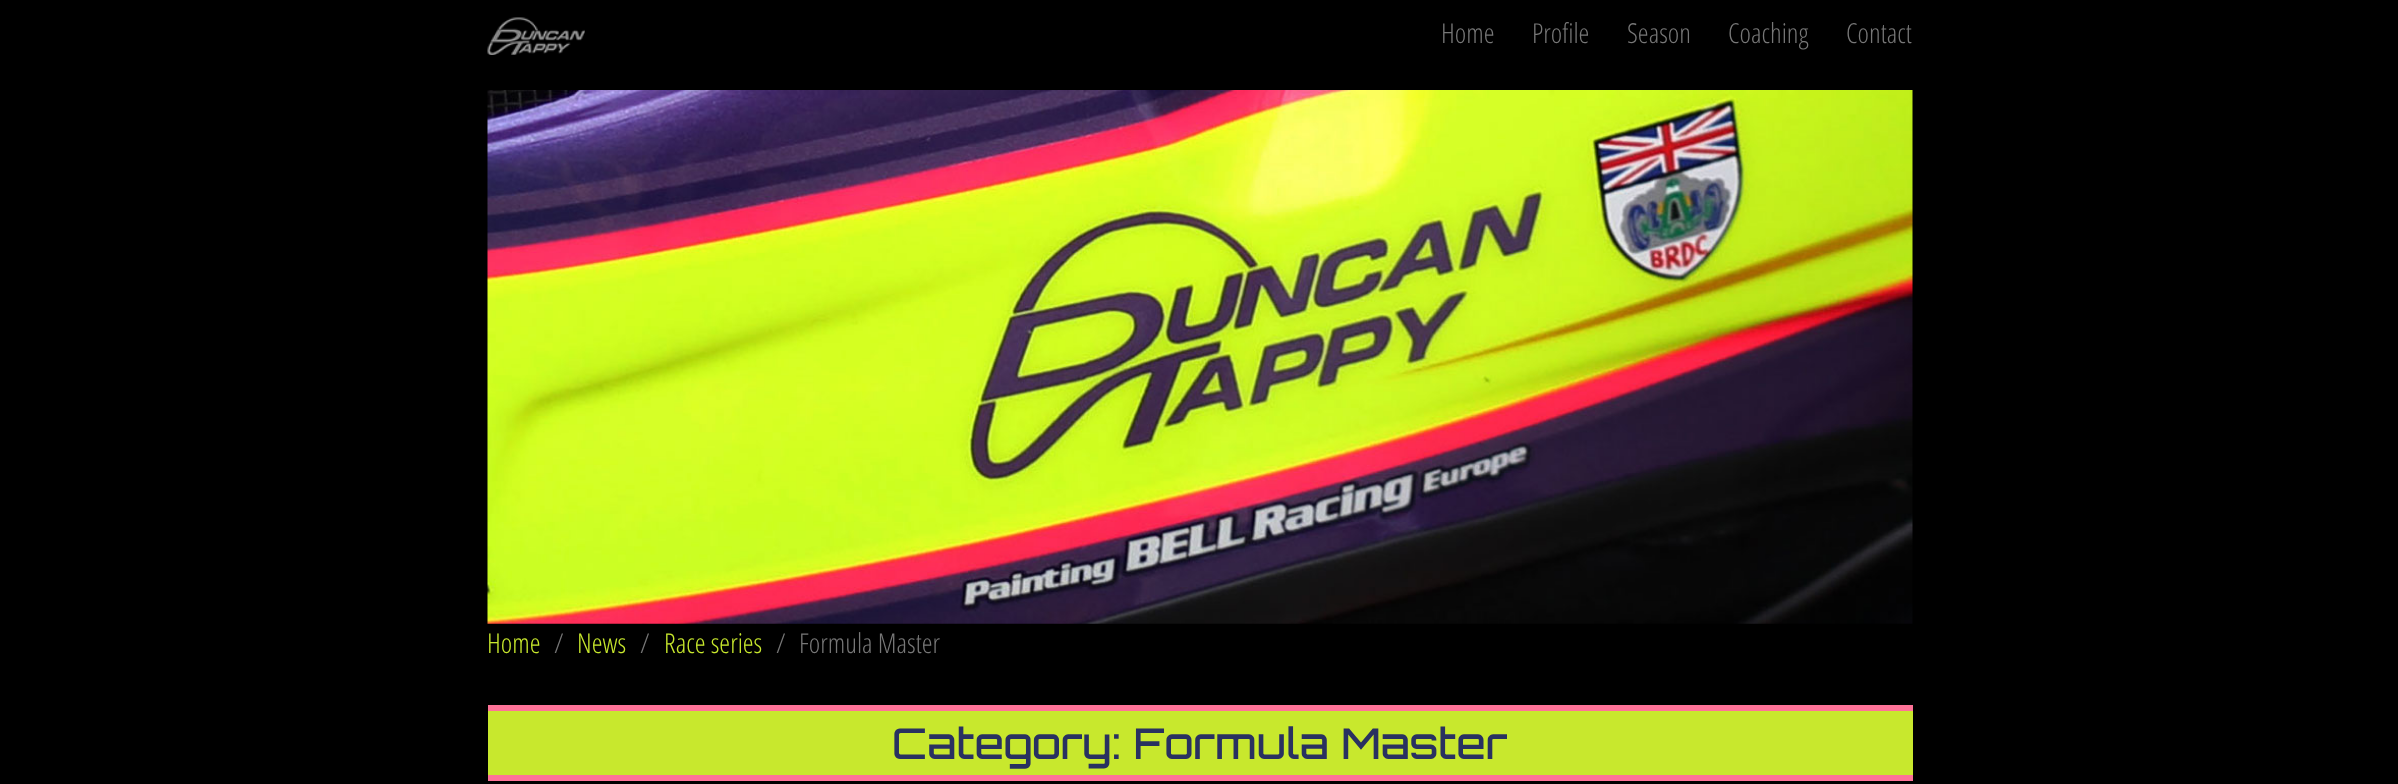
(async () => {
    const canvas = document.querySelector("canvas");
    canvas.width = 2398;
    canvas.height = 784;
    const context = canvas.getContext("2d");
    context.miterLimit = 4;
    context.fontKerning = "normal";
    function write(s, x, y, font, color) {
        context.font = font;
        context.fillStyle = color;
        context.fillText(s, x, y);
    }
    function block(x, y, w, h, color) {
        context.fillStyle = color;
        context.fillRect(x, y, w, h);
    }
    async function photo(src, x, y, w, h) {
        const img = new Image();
        img.src = src;
        await img.decode();
        context.drawImage(img, x, y, w, h);
    }

    block(0, 0, 2398, 784, "rgb(0, 0, 0)");
    await photo("media/1.png", 487, 17, 98, 38);
    write("Home", 1441, 43, "300 27.5px Open Sans Condensed", "rgb(119, 119, 119)");
    write("Profile", 1532, 43, "300 27.5px Open Sans Condensed", "rgb(119, 119, 119)");
    write("Season", 1627, 43, "300 27.5px Open Sans Condensed", "rgb(119, 119, 119)");
    write("Coaching", 1728, 43, "300 27.5px Open Sans Condensed", "rgb(119, 119, 119)");
    write("Contact", 1846, 43, "300 27.5px Open Sans Condensed", "rgb(119, 119, 119)");
    await photo("media/2.png", 487, 90, 1426, 534);
    write("Home", 487, 653, "300 27.5px Open Sans Condensed", "rgb(200, 232, 45)");
    write("/", 554, 653, "300 27.5px Open Sans Condensed", "rgb(119, 119, 119)");
    write("News", 577, 653, "300 27.5px Open Sans Condensed", "rgb(200, 232, 45)");
    write("/", 640, 653, "300 27.5px Open Sans Condensed", "rgb(119, 119, 119)");
    write("Race series", 664, 653, "300 27.5px Open Sans Condensed", "rgb(200, 232, 45)");
    write("/", 776, 653, "300 27.5px Open Sans Condensed", "rgb(119, 119, 119)");
    write("Formula Master", 799, 653, "300 27.5px Open Sans Condensed", "rgb(119, 119, 119)");
    block(488, 711, 1425, 64, "rgb(200, 232, 45)");
    block(488, 705, 1425, 6, "rgb(254, 115, 152)");
    block(488, 775, 1425, 6, "rgb(254, 115, 152)");
    write("Category: Formula Master", 892, 759, "500 42.5px Orbitron", "rgb(41, 49, 96)");
})();
